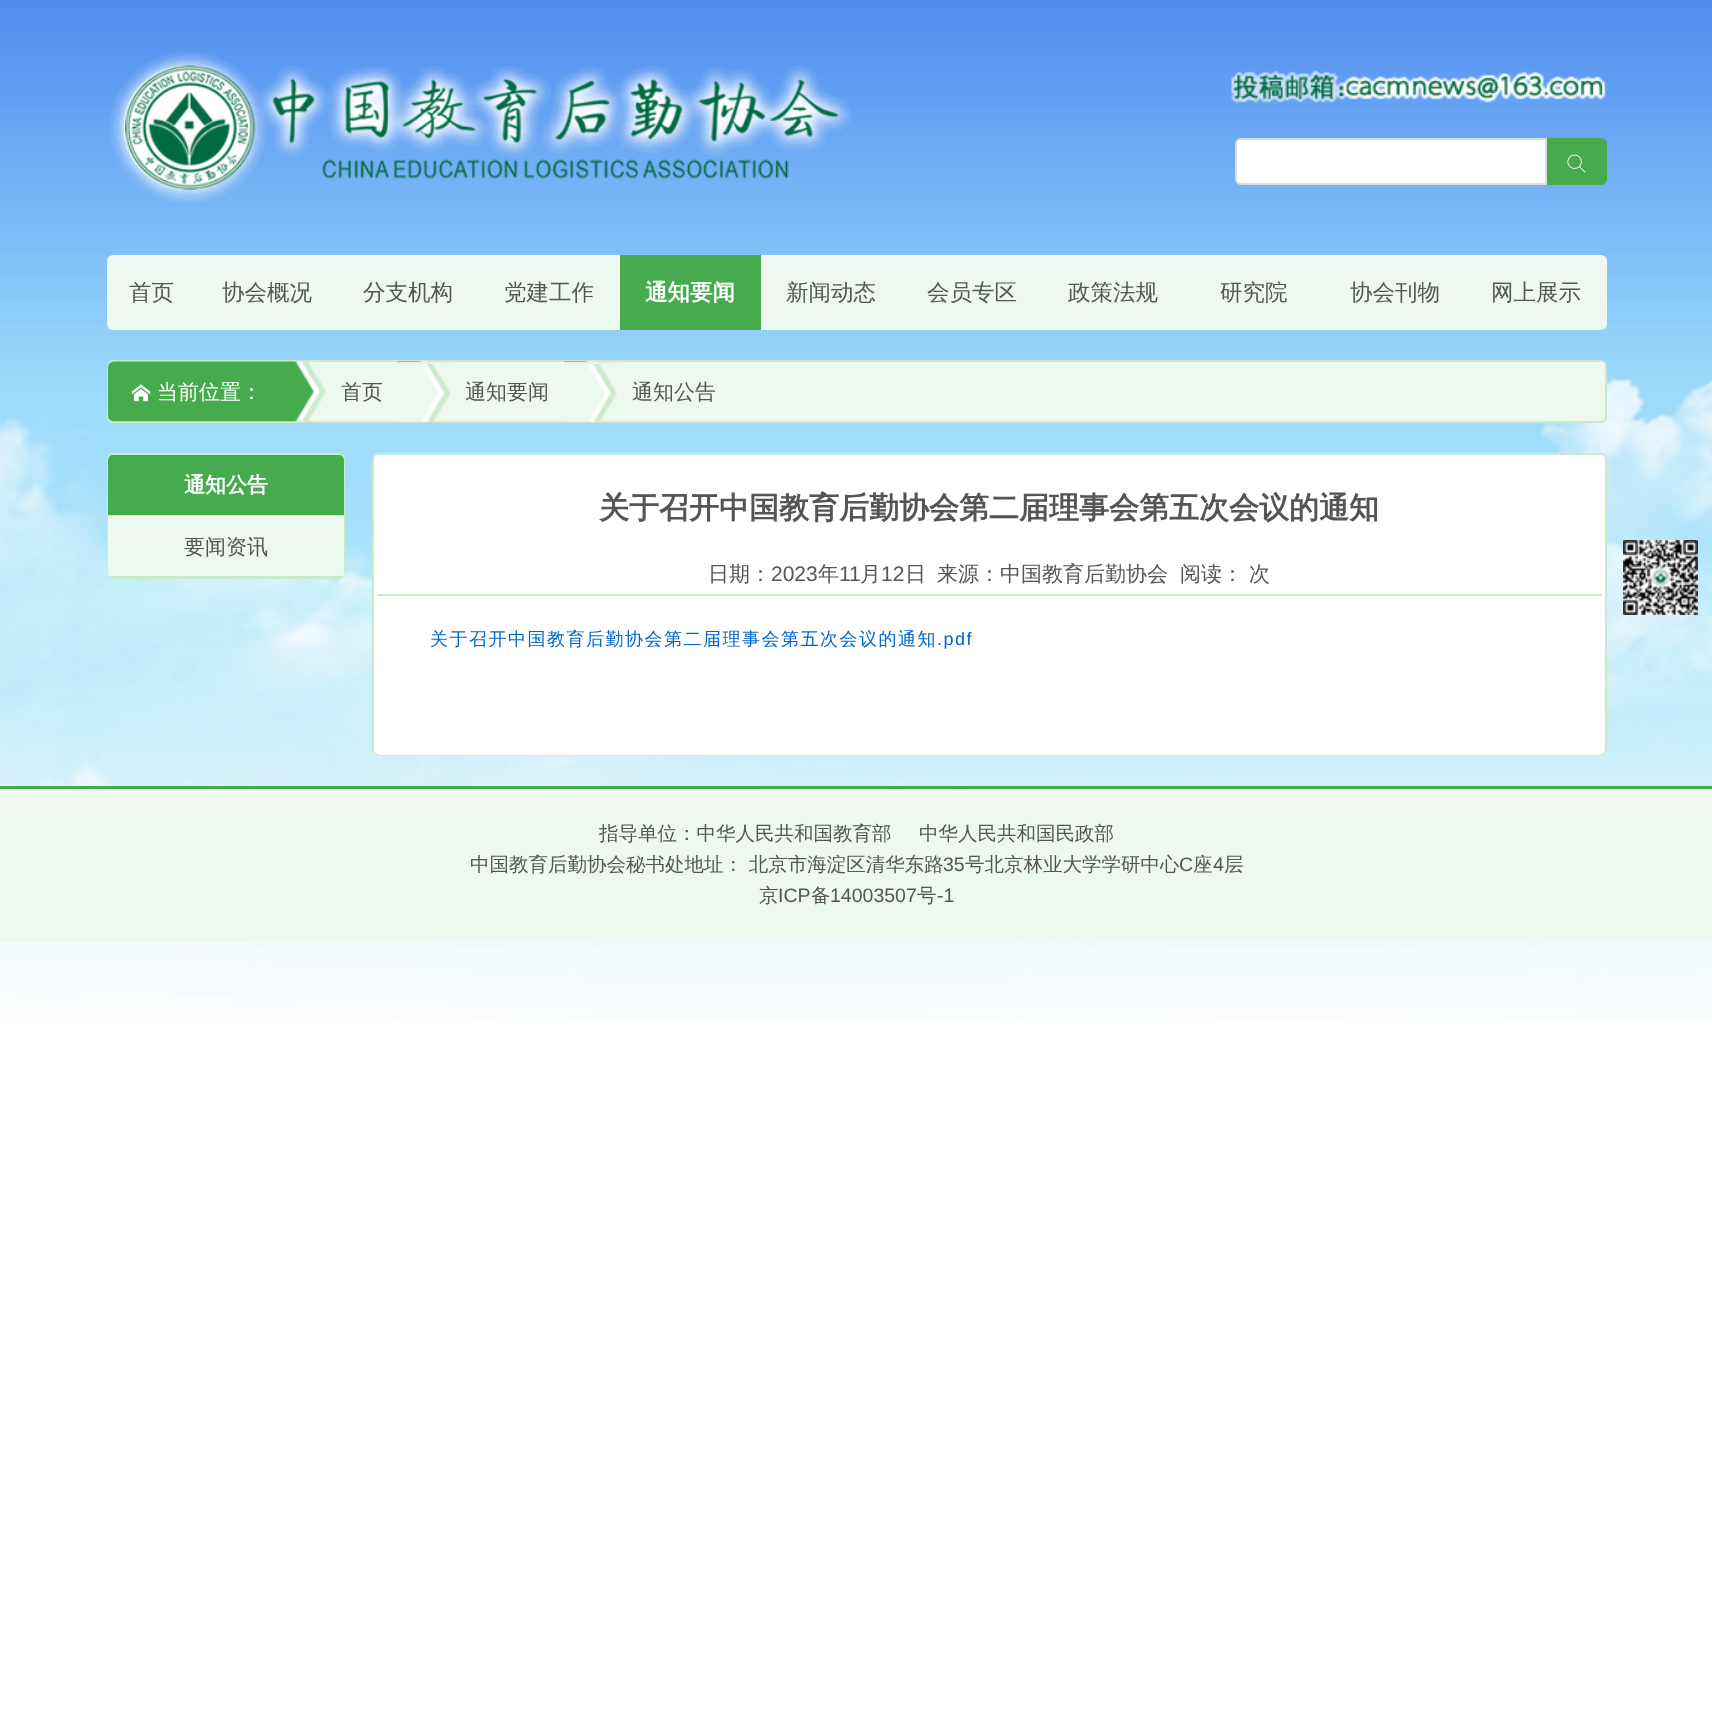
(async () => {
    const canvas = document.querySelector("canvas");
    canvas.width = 1712;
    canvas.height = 1712;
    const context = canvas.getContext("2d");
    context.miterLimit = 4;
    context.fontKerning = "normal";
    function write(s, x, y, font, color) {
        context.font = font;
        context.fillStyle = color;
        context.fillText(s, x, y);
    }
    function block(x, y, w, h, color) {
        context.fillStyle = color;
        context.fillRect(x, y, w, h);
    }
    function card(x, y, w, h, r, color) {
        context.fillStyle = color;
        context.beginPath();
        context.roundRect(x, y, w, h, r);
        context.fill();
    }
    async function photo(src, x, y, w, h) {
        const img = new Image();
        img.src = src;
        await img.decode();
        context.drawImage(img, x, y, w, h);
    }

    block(0, 0, 1712, 1712, "rgb(255, 255, 255)");
    await photo("media/1.png", 0, 0, 1712, 1021);
    await photo("media/2.png", 110, 52, 742, 151);
    await photo("media/3.png", 1231, 70, 375, 33);
    context.beginPath();
    context.roundRect(1236, 139, 310, 45, [5, 0, 0, 5]);
    context.fill();
    context.strokeStyle = "rgb(221, 221, 221)";
    context.lineWidth = 2;
    context.stroke();
    context.fillStyle = "rgb(69, 171, 77)";
    context.beginPath();
    context.roundRect(1548, 139, 58, 45, [0, 5, 5, 0]);
    context.fill();
    context.strokeStyle = "rgb(69, 171, 77)";
    context.stroke();
    await photo("media/4.png", 1567, 154, 19, 19);
    card(107, 255, 1500, 75, 6, "rgb(237, 248, 238)");
    write("首页", 129, 300, "500 22.5px WenQuanYi Zen Hei", "rgb(85, 85, 85)");
    write("协会概况", 222, 300, "500 22.5px WenQuanYi Zen Hei", "rgb(85, 85, 85)");
    write("分支机构", 363, 300, "500 22.5px WenQuanYi Zen Hei", "rgb(85, 85, 85)");
    write("党建工作", 504, 300, "500 22.5px WenQuanYi Zen Hei", "rgb(85, 85, 85)");
    block(620, 255, 141, 75, "rgb(69, 171, 77)");
    write("通知要闻", 645, 300, "bold 22.5px WenQuanYi Zen Hei", "rgb(255, 255, 255)");
    write("新闻动态", 786, 300, "500 22.5px WenQuanYi Zen Hei", "rgb(85, 85, 85)");
    write("会员专区", 927, 300, "500 22.5px WenQuanYi Zen Hei", "rgb(85, 85, 85)");
    write("政策法规", 1068, 300, "500 22.5px WenQuanYi Zen Hei", "rgb(85, 85, 85)");
    write("研究院", 1220, 300, "500 22.5px WenQuanYi Zen Hei", "rgb(85, 85, 85)");
    write("协会刊物", 1350, 300, "500 22.5px WenQuanYi Zen Hei", "rgb(85, 85, 85)");
    write("网上展示", 1491, 300, "500 22.5px WenQuanYi Zen Hei", "rgb(85, 85, 85)");
    context.fillStyle = "rgb(237, 248, 238)";
    context.beginPath();
    context.roundRect(108, 361, 1498, 61, 5);
    context.fill();
    context.strokeStyle = "rgb(202, 234, 204)";
    context.stroke();
    await photo("media/5.png", 107, 361, 219, 61);
    await photo("media/6.png", 131, 384, 20, 18);
    write("当前位置：", 157, 399, "500 21px WenQuanYi Zen Hei", "rgb(255, 255, 255)");
    write("首页", 341, 399, "500 21px WenQuanYi Zen Hei", "rgb(85, 85, 85)");
    await photo("media/7.png", 397, 361, 53, 61);
    block(398, 362, 52, 2, "rgb(238, 238, 238)");
    write("通知要闻", 465, 399, "500 21px WenQuanYi Zen Hei", "rgb(85, 85, 85)");
    await photo("media/8.png", 564, 361, 53, 61);
    block(564, 362, 53, 2, "rgb(238, 238, 238)");
    write("通知公告", 632, 399, "500 21px WenQuanYi Zen Hei", "rgb(85, 85, 85)");
    context.beginPath();
    context.roundRect(108, 454, 236, 124, 5);
    context.stroke();
    block(108, 515, 236, 1, "rgb(202, 234, 204)");
    context.fillStyle = "rgb(69, 171, 77)";
    context.beginPath();
    context.roundRect(108, 455, 236, 60, [5, 5, 0, 0]);
    context.fill();
    write("通知公告", 184, 492, "bold 21px WenQuanYi Zen Hei", "rgb(255, 255, 255)");
    context.save();
    context.beginPath();
    context.roundRect(108, 455, 236, 123, 5);
    context.clip();
    block(108, 576, 236, 2, "rgb(202, 234, 204)");
    block(108, 516, 236, 60, "rgb(237, 248, 238)");
    context.restore();
    write("要闻资讯", 184, 554, "500 21px WenQuanYi Zen Hei", "rgb(85, 85, 85)");
    context.fillStyle = "rgb(255, 255, 255)";
    context.beginPath();
    context.roundRect(373, 454, 1233, 301, 5);
    context.fill();
    context.stroke();
    write("关于召开中国教育后勤协会第二届理事会第五次会议的通知", 599, 518, "bold 30px WenQuanYi Zen Hei", "rgb(85, 85, 85)");
    write("日期：", 708, 581, "500 21px WenQuanYi Zen Hei", "rgb(85, 85, 85)");
    write("2023", 771, 581, "21px Liberation Sans", "rgb(85, 85, 85)");
    write("年", 818, 581, "500 21px WenQuanYi Zen Hei", "rgb(85, 85, 85)");
    write("11", 839, 581, "21px Liberation Sans", "rgb(85, 85, 85)");
    write("月", 860, 581, "500 21px WenQuanYi Zen Hei", "rgb(85, 85, 85)");
    write("12", 881, 581, "21px Liberation Sans", "rgb(85, 85, 85)");
    write("日", 905, 581, "500 21px WenQuanYi Zen Hei", "rgb(85, 85, 85)");
    write("来源：中国教育后勤协会", 937, 581, "500 21px WenQuanYi Zen Hei", "rgb(85, 85, 85)");
    write("阅读：", 1180, 581, "500 21px WenQuanYi Zen Hei", "rgb(85, 85, 85)");
    write("次", 1249, 581, "500 21px WenQuanYi Zen Hei", "rgb(85, 85, 85)");
    context.save();
    context.beginPath();
    context.roundRect(374, 455, 1231, 300, 5);
    context.clip();
    card(374, 594, 1231, 161, 6, "rgb(255, 255, 255)");
    context.restore();
    block(377, 594, 1225, 2, "rgb(202, 234, 204)");
    context.letterSpacing = "1.5px";
    write("关于召开中国教育后勤协会第二届理事会第五次会议的通知", 430, 645, "500 18px WenQuanYi Zen Hei", "rgb(0, 102, 204)");
    write(".pdf", 937, 645, "18px Liberation Sans", "rgb(0, 102, 204)");
    await photo("media/9.png", 1623, 540, 75, 75);
    block(0, 789, 1712, 153, "rgb(237, 248, 238)");
    block(0, 786, 1712, 3, "rgb(69, 171, 77)");
    context.letterSpacing = "0px";
    write("指导单位：中华人民共和国教育部", 599, 840, "500 19.5px WenQuanYi Zen Hei", "rgb(85, 85, 85)");
    write("中华人民共和国民政部", 919, 840, "500 19.5px WenQuanYi Zen Hei", "rgb(85, 85, 85)");
    write("中国教育后勤协会秘书处地址： 北京市海淀区清华东路", 470, 871, "500 19.5px WenQuanYi Zen Hei", "rgb(85, 85, 85)");
    write("35", 943, 871, "19.5px Liberation Sans", "rgb(85, 85, 85)");
    write("号北京林业大学学研中心", 965, 871, "500 19.5px WenQuanYi Zen Hei", "rgb(85, 85, 85)");
    write("C", 1179, 871, "19.5px Liberation Sans", "rgb(85, 85, 85)");
    write("座", 1193, 871, "500 19.5px WenQuanYi Zen Hei", "rgb(85, 85, 85)");
    write("4", 1213, 871, "19.5px Liberation Sans", "rgb(85, 85, 85)");
    write("层", 1224, 871, "500 19.5px WenQuanYi Zen Hei", "rgb(85, 85, 85)");
    write("京", 759, 902, "500 19.5px WenQuanYi Zen Hei", "rgb(85, 85, 85)");
    write("ICP", 778, 902, "19.5px Liberation Sans", "rgb(85, 85, 85)");
    write("备", 811, 902, "500 19.5px WenQuanYi Zen Hei", "rgb(85, 85, 85)");
    write("14003507", 830, 902, "19.5px Liberation Sans", "rgb(85, 85, 85)");
    write("号", 917, 902, "500 19.5px WenQuanYi Zen Hei", "rgb(85, 85, 85)");
    write("-1", 937, 902, "19.5px Liberation Sans", "rgb(85, 85, 85)");
})();
